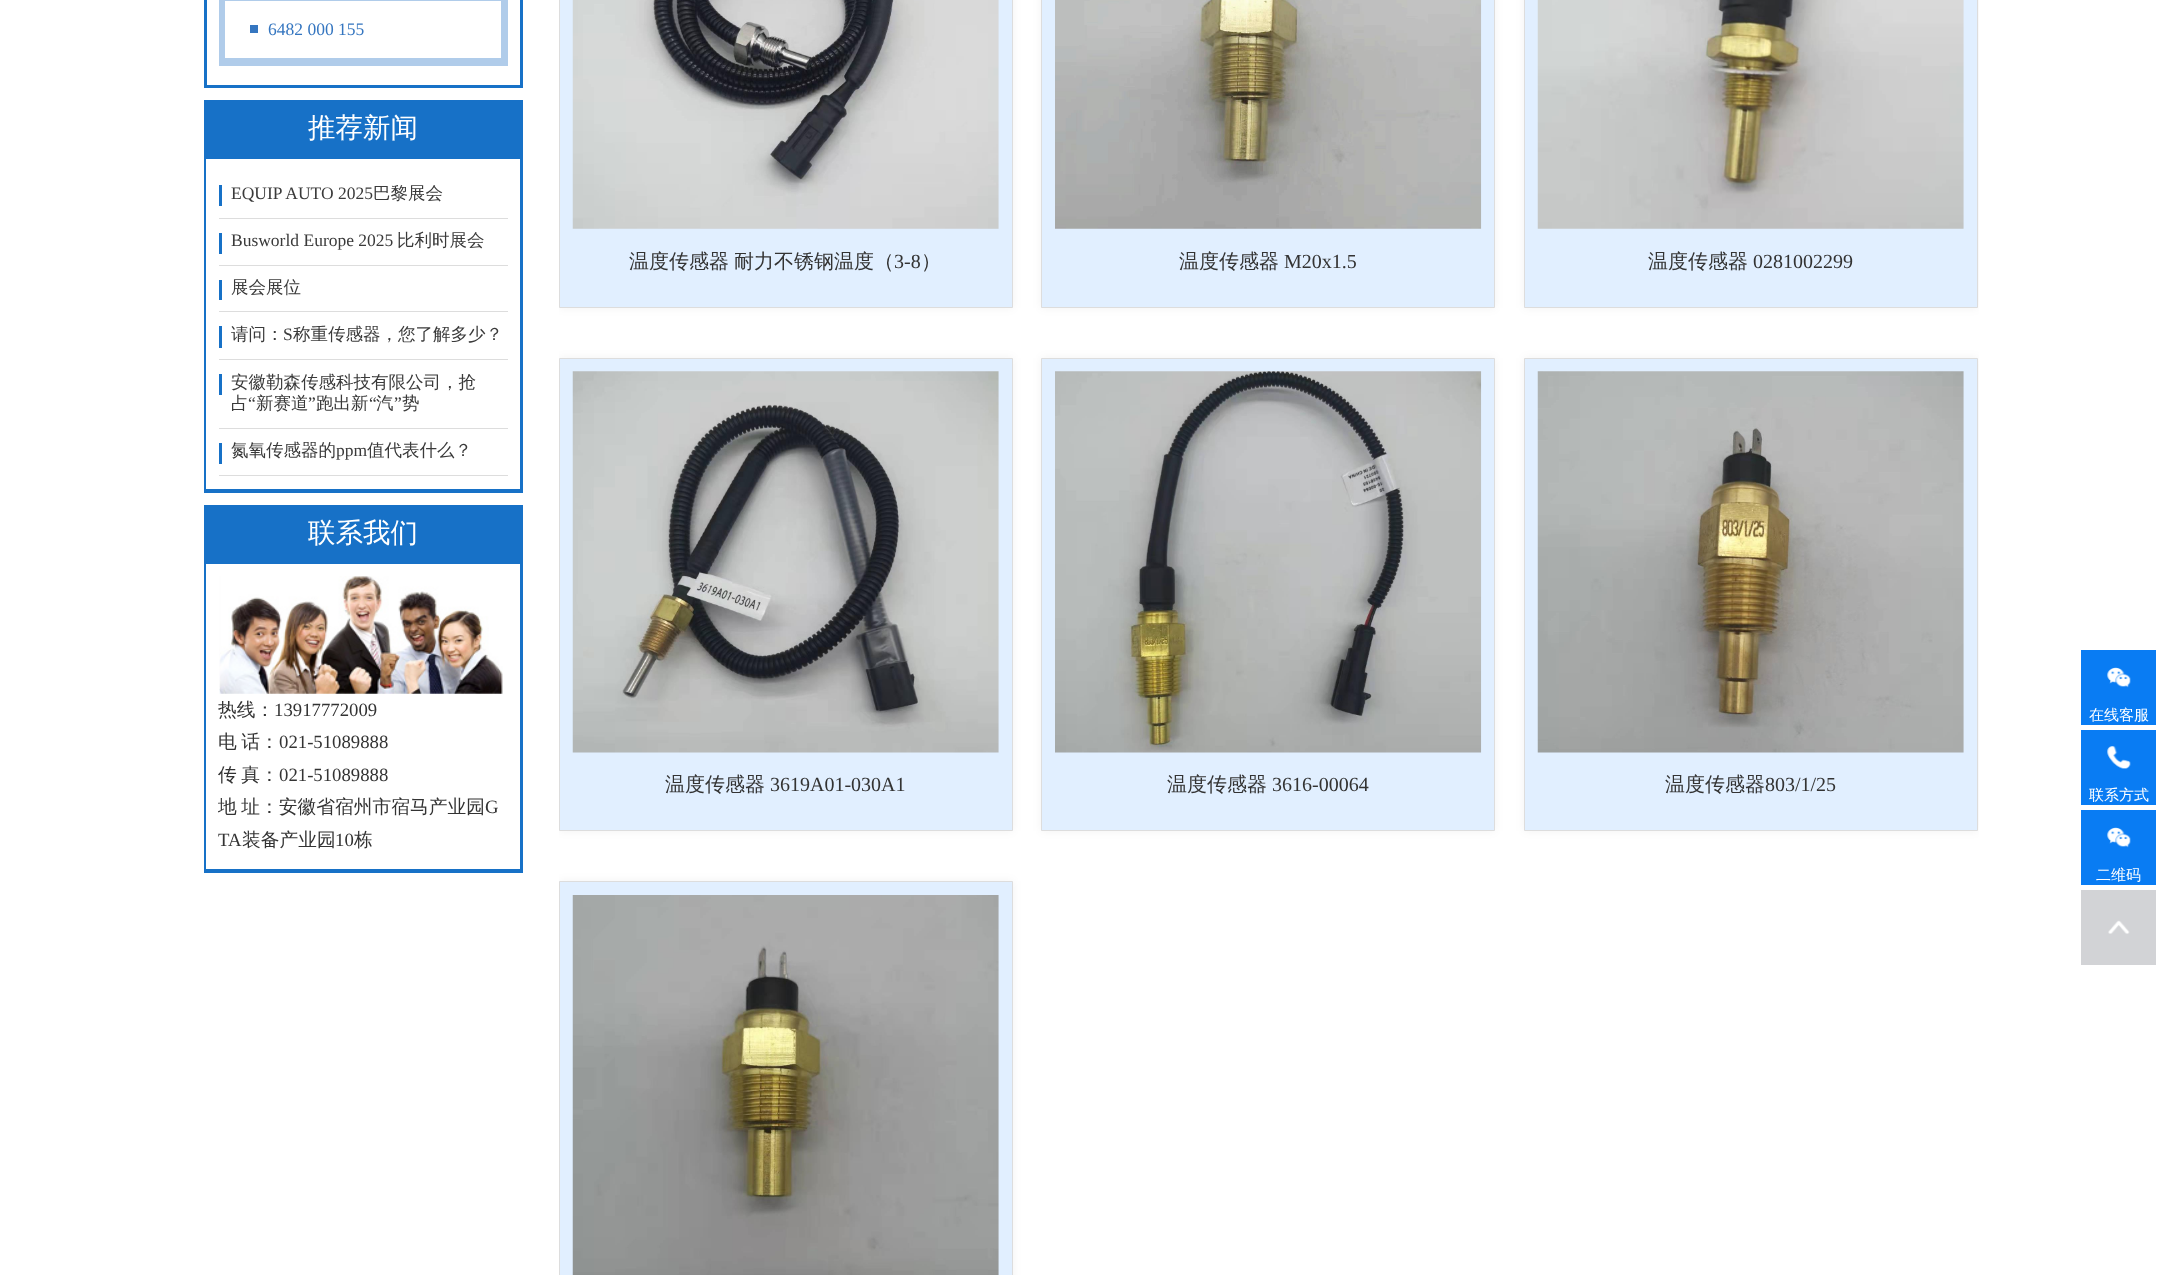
(async () => {
    const canvas = document.querySelector("canvas");
    canvas.width = 2181;
    canvas.height = 1275;
    const context = canvas.getContext("2d");
    context.miterLimit = 4;
    context.fontKerning = "normal";
    function write(s, x, y, font, color) {
        context.font = font;
        context.fillStyle = color;
        context.fillText(s, x, y);
    }
    function block(x, y, w, h, color) {
        context.fillStyle = color;
        context.fillRect(x, y, w, h);
    }
    async function photo(src, x, y, w, h) {
        const img = new Image();
        img.src = src;
        await img.decode();
        context.drawImage(img, x, y, w, h);
    }

    block(0, 0, 2181, 1275, "rgb(255, 255, 255)");
    context.strokeStyle = "rgb(23, 113, 199)";
    context.lineWidth = 3;
    context.strokeRect(205.5, -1.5, 316, 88);
    block(219, 0, 289, 66, "rgb(176, 204, 234)");
    block(225, 1, 276, 57, "rgb(255, 255, 255)");
    block(250, 25, 8, 8, "rgb(53, 118, 192)");
    write("6482 000 155", 268, 35, "17.5px Liberation Serif", "rgb(53, 118, 192)");
    block(204, 100, 319, 393, "rgb(23, 113, 199)");
    write("推荐新闻", 308, 137, "500 27.5px WenQuanYi Zen Hei", "rgb(255, 255, 255)");
    block(206, 159, 314, 330, "rgb(255, 255, 255)");
    block(219, 218, 289, 1, "rgb(221, 221, 221)");
    block(219, 185, 3, 21, "rgb(23, 113, 199)");
    write("EQUIP AUTO 2025", 231, 199, "17.5px Liberation Serif", "rgb(58, 58, 58)");
    write("巴黎展会", 373, 199, "500 17.5px WenQuanYi Zen Hei", "rgb(58, 58, 58)");
    block(219, 265, 289, 1, "rgb(221, 221, 221)");
    block(219, 233, 3, 21, "rgb(23, 113, 199)");
    write("Busworld Europe 2025", 231, 246, "17.5px Liberation Serif", "rgb(58, 58, 58)");
    write("比利时展会", 397, 246, "500 17.5px WenQuanYi Zen Hei", "rgb(58, 58, 58)");
    block(219, 311, 289, 1, "rgb(221, 221, 221)");
    block(219, 280, 3, 20, "rgb(23, 113, 199)");
    write("展会展位", 231, 293, "500 17.5px WenQuanYi Zen Hei", "rgb(58, 58, 58)");
    block(219, 359, 289, 1, "rgb(221, 221, 221)");
    block(219, 326, 3, 22, "rgb(23, 113, 199)");
    write("请问：", 231, 340, "500 17.5px WenQuanYi Zen Hei", "rgb(58, 58, 58)");
    write("S", 283, 340, "17.5px Liberation Serif", "rgb(58, 58, 58)");
    write("称重传感器，您了解多少？", 293, 340, "500 17.5px WenQuanYi Zen Hei", "rgb(58, 58, 58)");
    block(219, 428, 289, 1, "rgb(221, 221, 221)");
    block(219, 374, 3, 21, "rgb(23, 113, 199)");
    write("安徽勒森传感科技有限公司，抢", 231, 388, "500 17.5px WenQuanYi Zen Hei", "rgb(58, 58, 58)");
    write("占", 231, 409, "500 17.5px WenQuanYi Zen Hei", "rgb(58, 58, 58)");
    write("“", 248, 409, "17.5px Liberation Serif", "rgb(58, 58, 58)");
    write("新赛道", 256, 409, "500 17.5px WenQuanYi Zen Hei", "rgb(58, 58, 58)");
    write("”", 308, 409, "17.5px Liberation Serif", "rgb(58, 58, 58)");
    write("跑出新", 316, 409, "500 17.5px WenQuanYi Zen Hei", "rgb(58, 58, 58)");
    write("“", 369, 409, "17.5px Liberation Serif", "rgb(58, 58, 58)");
    write("汽", 376, 409, "500 17.5px WenQuanYi Zen Hei", "rgb(58, 58, 58)");
    write("”", 394, 409, "17.5px Liberation Serif", "rgb(58, 58, 58)");
    write("势", 402, 409, "500 17.5px WenQuanYi Zen Hei", "rgb(58, 58, 58)");
    block(219, 475, 289, 1, "rgb(221, 221, 221)");
    block(219, 443, 3, 21, "rgb(23, 113, 199)");
    write("氮氧传感器的", 231, 456, "500 17.5px WenQuanYi Zen Hei", "rgb(58, 58, 58)");
    write("ppm", 336, 456, "17.5px Liberation Serif", "rgb(58, 58, 58)");
    write("值代表什么？", 367, 456, "500 17.5px WenQuanYi Zen Hei", "rgb(58, 58, 58)");
    block(204, 505, 319, 368, "rgb(23, 113, 199)");
    write("联系我们", 308, 542, "500 27.5px WenQuanYi Zen Hei", "rgb(255, 255, 255)");
    block(206, 564, 314, 305, "rgb(255, 255, 255)");
    await photo("media/1.png", 219, 576, 284, 118);
    write("热线：", 218, 716, "500 18.75px WenQuanYi Zen Hei", "rgb(51, 51, 51)");
    write("13917772009", 274, 716, "18.75px Liberation Serif", "rgb(51, 51, 51)");
    context.wordSpacing = "-1px";
    write("电 话：", 218, 748, "500 18.75px WenQuanYi Zen Hei", "rgb(51, 51, 51)");
    context.wordSpacing = "0px";
    write("021-51089888", 279, 748, "18.75px Liberation Serif", "rgb(51, 51, 51)");
    context.wordSpacing = "-1px";
    write("传 真：", 218, 781, "500 18.75px WenQuanYi Zen Hei", "rgb(51, 51, 51)");
    context.wordSpacing = "0px";
    write("021-51089888", 279, 781, "18.75px Liberation Serif", "rgb(51, 51, 51)");
    context.wordSpacing = "-1px";
    write("地 址：安徽省宿州市宿马产业园", 218, 813, "500 18.75px WenQuanYi Zen Hei", "rgb(51, 51, 51)");
    context.wordSpacing = "0px";
    write("G", 485, 813, "18.75px Liberation Serif", "rgb(51, 51, 51)");
    write("TA", 218, 846, "18.75px Liberation Serif", "rgb(51, 51, 51)");
    write("装备产业园", 242, 846, "500 18.75px WenQuanYi Zen Hei", "rgb(51, 51, 51)");
    write("10", 335, 846, "18.75px Liberation Serif", "rgb(51, 51, 51)");
    write("栋", 354, 846, "500 18.75px WenQuanYi Zen Hei", "rgb(51, 51, 51)");
    context.save();
    context.beginPath();
    context.rect(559, 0, 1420, 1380);
    context.clip();
    context.fillStyle = "rgba(0, 0, 0, 0.05)";
    context.filter = "blur(5px)";
    context.beginPath();
    context.rect(559, -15, 454, 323);
    context.fill();
    context.filter = "none";
    context.restore();
    context.fillStyle = "rgb(225, 239, 255)";
    context.beginPath();
    context.rect(559.5, -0.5, 453, 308);
    context.fill();
    context.strokeStyle = "rgb(221, 221, 221)";
    context.lineWidth = 1;
    context.stroke();
    await photo("media/2.png", 572, 0, 427, 229);
    context.wordSpacing = "-1px";
    write("温度传感器 耐力不锈钢温度（", 629, 268, "500 20px WenQuanYi Zen Hei", "rgb(51, 51, 51)");
    context.wordSpacing = "0px";
    write("3-8", 894, 268, "20px Liberation Serif", "rgb(51, 51, 51)");
    write("）", 921, 268, "500 20px WenQuanYi Zen Hei", "rgb(51, 51, 51)");
    context.fillStyle = "rgba(0, 0, 0, 0.05)";
    context.filter = "blur(5px)";
    context.beginPath();
    context.rect(1041, -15, 454, 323);
    context.fill();
    context.filter = "none";
    context.fillStyle = "rgb(225, 239, 255)";
    context.beginPath();
    context.rect(1041.5, -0.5, 453, 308);
    context.fill();
    context.stroke();
    await photo("media/3.png", 1055, 0, 427, 229);
    write("温度传感器", 1179, 268, "500 20px WenQuanYi Zen Hei", "rgb(51, 51, 51)");
    write("M20x1.5", 1284, 268, "20px Liberation Serif", "rgb(51, 51, 51)");
    context.save();
    context.beginPath();
    context.rect(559, 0, 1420, 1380);
    context.clip();
    context.fillStyle = "rgba(0, 0, 0, 0.05)";
    context.filter = "blur(5px)";
    context.beginPath();
    context.rect(1524, -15, 454, 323);
    context.fill();
    context.filter = "none";
    context.restore();
    context.fillStyle = "rgb(225, 239, 255)";
    context.beginPath();
    context.rect(1524.5, -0.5, 453, 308);
    context.fill();
    context.stroke();
    await photo("media/4.png", 1537, 0, 427, 229);
    write("温度传感器", 1648, 268, "500 20px WenQuanYi Zen Hei", "rgb(51, 51, 51)");
    write("0281002299", 1753, 268, "20px Liberation Serif", "rgb(51, 51, 51)");
    context.save();
    context.beginPath();
    context.rect(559, 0, 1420, 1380);
    context.clip();
    context.fillStyle = "rgba(0, 0, 0, 0.05)";
    context.filter = "blur(5px)";
    context.beginPath();
    context.rect(559, 358, 454, 473);
    context.fill();
    context.filter = "none";
    context.restore();
    context.fillStyle = "rgb(225, 239, 255)";
    context.beginPath();
    context.rect(559.5, 358.5, 453, 472);
    context.fill();
    context.stroke();
    await photo("media/5.png", 572, 371, 427, 382);
    write("温度传感器", 665, 791, "500 20px WenQuanYi Zen Hei", "rgb(51, 51, 51)");
    write("3619A01-030A1", 770, 791, "20px Liberation Serif", "rgb(51, 51, 51)");
    context.fillStyle = "rgba(0, 0, 0, 0.05)";
    context.filter = "blur(5px)";
    context.beginPath();
    context.rect(1041, 358, 454, 473);
    context.fill();
    context.filter = "none";
    context.fillStyle = "rgb(225, 239, 255)";
    context.beginPath();
    context.rect(1041.5, 358.5, 453, 472);
    context.fill();
    context.stroke();
    await photo("media/6.png", 1055, 371, 427, 382);
    write("温度传感器", 1167, 791, "500 20px WenQuanYi Zen Hei", "rgb(51, 51, 51)");
    write("3616-00064", 1272, 791, "20px Liberation Serif", "rgb(51, 51, 51)");
    context.save();
    context.beginPath();
    context.rect(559, 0, 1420, 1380);
    context.clip();
    context.fillStyle = "rgba(0, 0, 0, 0.05)";
    context.filter = "blur(5px)";
    context.beginPath();
    context.rect(1524, 358, 454, 473);
    context.fill();
    context.filter = "none";
    context.restore();
    context.fillStyle = "rgb(225, 239, 255)";
    context.beginPath();
    context.rect(1524.5, 358.5, 453, 472);
    context.fill();
    context.stroke();
    await photo("media/7.png", 1537, 371, 427, 382);
    write("温度传感器", 1665, 791, "500 20px WenQuanYi Zen Hei", "rgb(51, 51, 51)");
    write("803/1/25", 1765, 791, "20px Liberation Serif", "rgb(51, 51, 51)");
    context.save();
    context.beginPath();
    context.rect(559, 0, 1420, 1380);
    context.clip();
    context.fillStyle = "rgba(0, 0, 0, 0.05)";
    context.filter = "blur(5px)";
    context.beginPath();
    context.rect(559, 881, 454, 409);
    context.fill();
    context.filter = "none";
    context.restore();
    context.fillStyle = "rgb(225, 239, 255)";
    context.beginPath();
    context.rect(559.5, 881.5, 453, 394);
    context.fill();
    context.stroke();
    await photo("media/8.png", 572, 895, 427, 380);
    block(2081, 650, 75, 75, "rgb(9, 124, 243)");
    await photo("media/9.png", 2107, 667, 24, 21);
    write("在线客服", 2089, 720, "500 15px WenQuanYi Zen Hei", "rgb(255, 255, 255)");
    block(2081, 730, 75, 75, "rgb(9, 124, 243)");
    await photo("media/10.png", 2107, 746, 24, 23);
    write("联系方式", 2089, 800, "500 15px WenQuanYi Zen Hei", "rgb(255, 255, 255)");
    block(2081, 810, 75, 75, "rgb(9, 124, 243)");
    await photo("media/9.png", 2107, 827, 24, 21);
    write("二维码", 2096, 880, "500 15px WenQuanYi Zen Hei", "rgb(255, 255, 255)");
    block(2081, 890, 75, 75, "rgb(210, 211, 214)");
    await photo("media/11.png", 2108, 920, 22, 14);
})();
